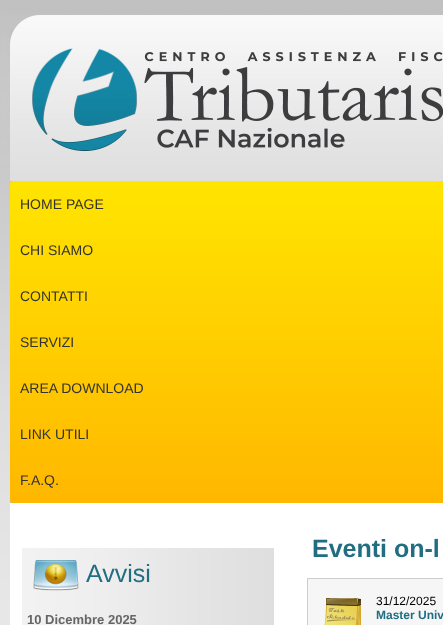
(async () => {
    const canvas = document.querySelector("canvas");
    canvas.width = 443;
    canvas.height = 625;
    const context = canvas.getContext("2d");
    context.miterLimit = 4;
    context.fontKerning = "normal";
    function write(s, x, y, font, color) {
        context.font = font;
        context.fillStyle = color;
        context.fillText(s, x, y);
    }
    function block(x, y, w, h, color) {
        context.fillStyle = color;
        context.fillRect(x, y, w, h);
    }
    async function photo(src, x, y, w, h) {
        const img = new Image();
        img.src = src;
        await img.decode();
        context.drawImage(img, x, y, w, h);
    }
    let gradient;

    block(0, 0, 443, 625, "rgb(255, 255, 255)");
    await photo("media/1.png", 0, 0, 443, 625);
    block(10, 29, 433, 474, "rgb(193, 193, 193)");
    await photo("media/2.png", 10, 15, 433, 166);
    gradient = context.createLinearGradient(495, 181, 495, 503);
    gradient.addColorStop(0, "rgb(255, 229, 0)");
    gradient.addColorStop(1, "rgb(255, 183, 0)");
    context.fillStyle = gradient;
    context.beginPath();
    context.roundRect(10, 181, 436, 322, 3);
    context.fill();
    write("HOME PAGE", 20, 209, "14px Liberation Sans", "rgb(51, 51, 51)");
    write("CHI SIAMO", 20, 255, "14px Liberation Sans", "rgb(51, 51, 51)");
    write("CONTATTI", 20, 301, "14px Liberation Sans", "rgb(51, 51, 51)");
    write("SERVIZI", 20, 347, "14px Liberation Sans", "rgb(51, 51, 51)");
    write("AREA DOWNLOAD", 20, 393, "14px Liberation Sans", "rgb(51, 51, 51)");
    write("LINK UTILI", 20, 439, "14px Liberation Sans", "rgb(51, 51, 51)");
    write("F.A.Q.", 20, 485, "14px Liberation Sans", "rgb(51, 51, 51)");
    block(10, 503, 433, 122, "rgb(255, 255, 255)");
    await photo("media/3.png", 22, 548, 252, 77);
    await photo("media/4.png", 33, 560, 46, 31);
    write("Avvisi", 86, 582, "25px Liberation Sans", "rgb(33, 110, 131)");
    write("10 Dicembre 2025", 27, 624, "bold 13px Liberation Sans", "rgb(102, 102, 102)");
    write("Eventi on-l", 312, 557, "bold 25px Liberation Sans", "rgb(33, 110, 131)");
    context.fillStyle = "rgb(246, 246, 246)";
    context.beginPath();
    context.rect(307.5, 578.5, 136, 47);
    context.fill();
    context.strokeStyle = "rgb(204, 204, 204)";
    context.stroke();
    await photo("media/5.png", 324, 598, 37, 27);
    write("31/12/2025", 376, 605, "12px Liberation Sans", "rgb(0, 0, 0)");
    write("Master Univ", 376, 619, "bold 12px Liberation Sans", "rgb(33, 110, 131)");
})();
